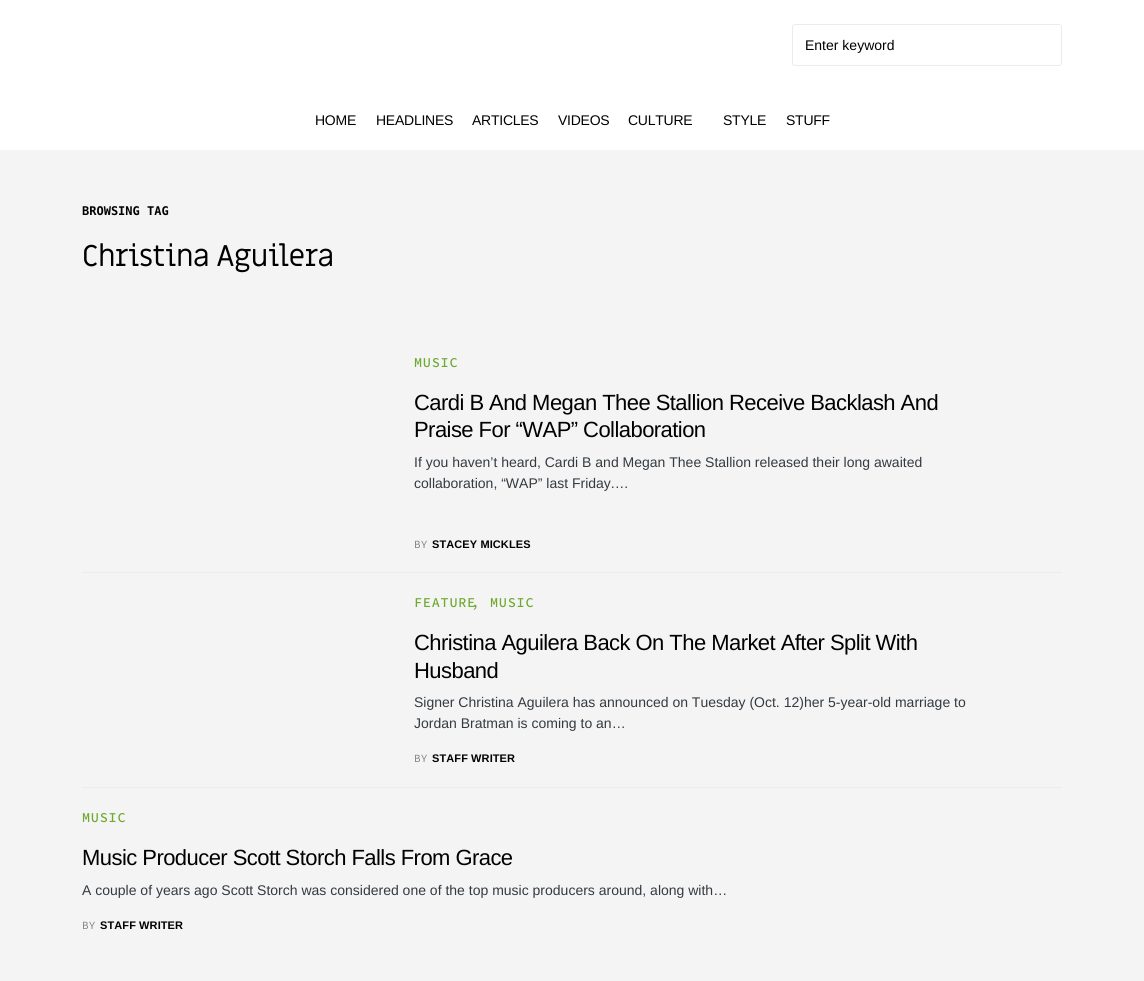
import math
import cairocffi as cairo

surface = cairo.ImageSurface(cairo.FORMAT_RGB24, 1144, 981)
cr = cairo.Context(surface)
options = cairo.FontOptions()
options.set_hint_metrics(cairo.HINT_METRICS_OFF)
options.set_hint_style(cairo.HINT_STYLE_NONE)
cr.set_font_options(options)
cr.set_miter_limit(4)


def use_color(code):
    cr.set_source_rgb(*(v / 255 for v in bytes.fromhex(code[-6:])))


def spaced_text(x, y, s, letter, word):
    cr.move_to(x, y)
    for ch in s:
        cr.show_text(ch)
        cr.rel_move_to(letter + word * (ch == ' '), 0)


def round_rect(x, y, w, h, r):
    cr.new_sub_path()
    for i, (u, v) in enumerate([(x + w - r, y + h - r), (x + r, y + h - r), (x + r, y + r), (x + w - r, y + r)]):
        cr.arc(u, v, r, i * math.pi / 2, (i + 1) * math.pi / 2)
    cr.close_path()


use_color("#f4f4f4")
cr.paint()
use_color("#ffffff")
cr.rectangle(0, 0, 1144, 150)
cr.fill()
round_rect(792.5, 24.5, 269, 41, 2.5)
use_color("#e9ecef")
cr.set_line_width(1)
cr.stroke()
cr.select_font_face("Liberation Sans")
cr.set_font_size(14)
use_color("#000000")
cr.move_to(805, 50)
cr.show_text("Enter keyword")
spaced_text(315, 125, "HOME", -0.25, 0)
spaced_text(376, 125, "HEADLINES", -0.25, 0)
spaced_text(472, 125, "ARTICLES", -0.25, 0)
spaced_text(558, 125, "VIDEOS", -0.25, 0)
spaced_text(628, 125, "CULTURE", -0.25, 0)
spaced_text(723, 125, "STYLE", -0.25, 0)
spaced_text(786, 125, "STUFF", -0.25, 0)
cr.select_font_face("DejaVu Sans Mono", cairo.FONT_SLANT_NORMAL, cairo.FONT_WEIGHT_BOLD)
cr.set_font_size(12)
cr.move_to(82, 215)
cr.show_text("BROWSING TAG")
cr.select_font_face("Miriam Libre")
cr.set_font_size(30)
spaced_text(82, 266, "Christina Aguilera", -0.75, 0)
cr.select_font_face("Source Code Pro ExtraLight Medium")
cr.set_font_size(13.5)
use_color("#6ca92e")
spaced_text(414, 367, "MUSIC", 0.75, 0)
cr.select_font_face("Liberation Sans")
cr.set_font_size(22)
use_color("#000000")
spaced_text(414, 410, "Cardi B And Megan Thee Stallion Receive Backlash And", -0.55, 0)
spaced_text(414, 437, "Praise For “WAP” Collaboration", -0.55, 0)
cr.set_font_size(14)
use_color("#343a40")
cr.move_to(414, 467)
cr.show_text("If you haven’t heard, Cardi B and Megan Thee Stallion released their long awaited")
cr.move_to(414, 488)
cr.show_text("collaboration, “WAP” last Friday.…")
cr.select_font_face("Source Code Pro ExtraLight")
cr.set_font_size(11)
use_color("#818181")
spaced_text(414, 548, "BY", 0.1, 0)
cr.select_font_face("Liberation Sans", cairo.FONT_SLANT_NORMAL, cairo.FONT_WEIGHT_BOLD)
use_color("#000000")
spaced_text(432, 548, "STACEY MICKLES", 0.1, 0)
use_color("#e9ecef")
cr.rectangle(82, 572, 980, 1)
cr.fill()
cr.select_font_face("Source Code Pro ExtraLight Medium")
cr.set_font_size(13.5)
use_color("#6ca92e")
spaced_text(471, 607, ",", 0.75, 0)
spaced_text(414, 607, "FEATURE", 0.75, 0)
spaced_text(490, 607, "MUSIC", 0.75, 0)
cr.select_font_face("Liberation Sans")
cr.set_font_size(22)
use_color("#000000")
spaced_text(414, 650, "Christina Aguilera Back On The Market After Split With", -0.55, 0)
spaced_text(414, 678, "Husband", -0.55, 0)
cr.set_font_size(14)
use_color("#343a40")
cr.move_to(414, 707)
cr.show_text("Signer Christina Aguilera has announced on Tuesday (Oct. 12)her 5-year-old marriage to")
cr.move_to(414, 728)
cr.show_text("Jordan Bratman is coming to an…")
cr.select_font_face("Source Code Pro ExtraLight")
cr.set_font_size(11)
use_color("#818181")
spaced_text(414, 762, "BY", 0.1, 0)
cr.select_font_face("Liberation Sans", cairo.FONT_SLANT_NORMAL, cairo.FONT_WEIGHT_BOLD)
use_color("#000000")
spaced_text(432, 762, "STAFF WRITER", 0.1, 0)
use_color("#e9ecef")
cr.rectangle(82, 787, 980, 1)
cr.fill()
cr.select_font_face("Source Code Pro ExtraLight Medium")
cr.set_font_size(13.5)
use_color("#6ca92e")
spaced_text(82, 822, "MUSIC", 0.75, 0)
cr.select_font_face("Liberation Sans")
cr.set_font_size(22)
use_color("#000000")
spaced_text(82, 865, "Music Producer Scott Storch Falls From Grace", -0.55, 0)
cr.set_font_size(14)
use_color("#343a40")
cr.move_to(82, 895)
cr.show_text("A couple of years ago Scott Storch was considered one of the top music producers around, along with…")
cr.select_font_face("Source Code Pro ExtraLight")
cr.set_font_size(11)
use_color("#818181")
spaced_text(82, 929, "BY", 0.1, 0)
cr.select_font_face("Liberation Sans", cairo.FONT_SLANT_NORMAL, cairo.FONT_WEIGHT_BOLD)
use_color("#000000")
spaced_text(100, 929, "STAFF WRITER", 0.1, 0)
surface.write_to_png("result.png")
